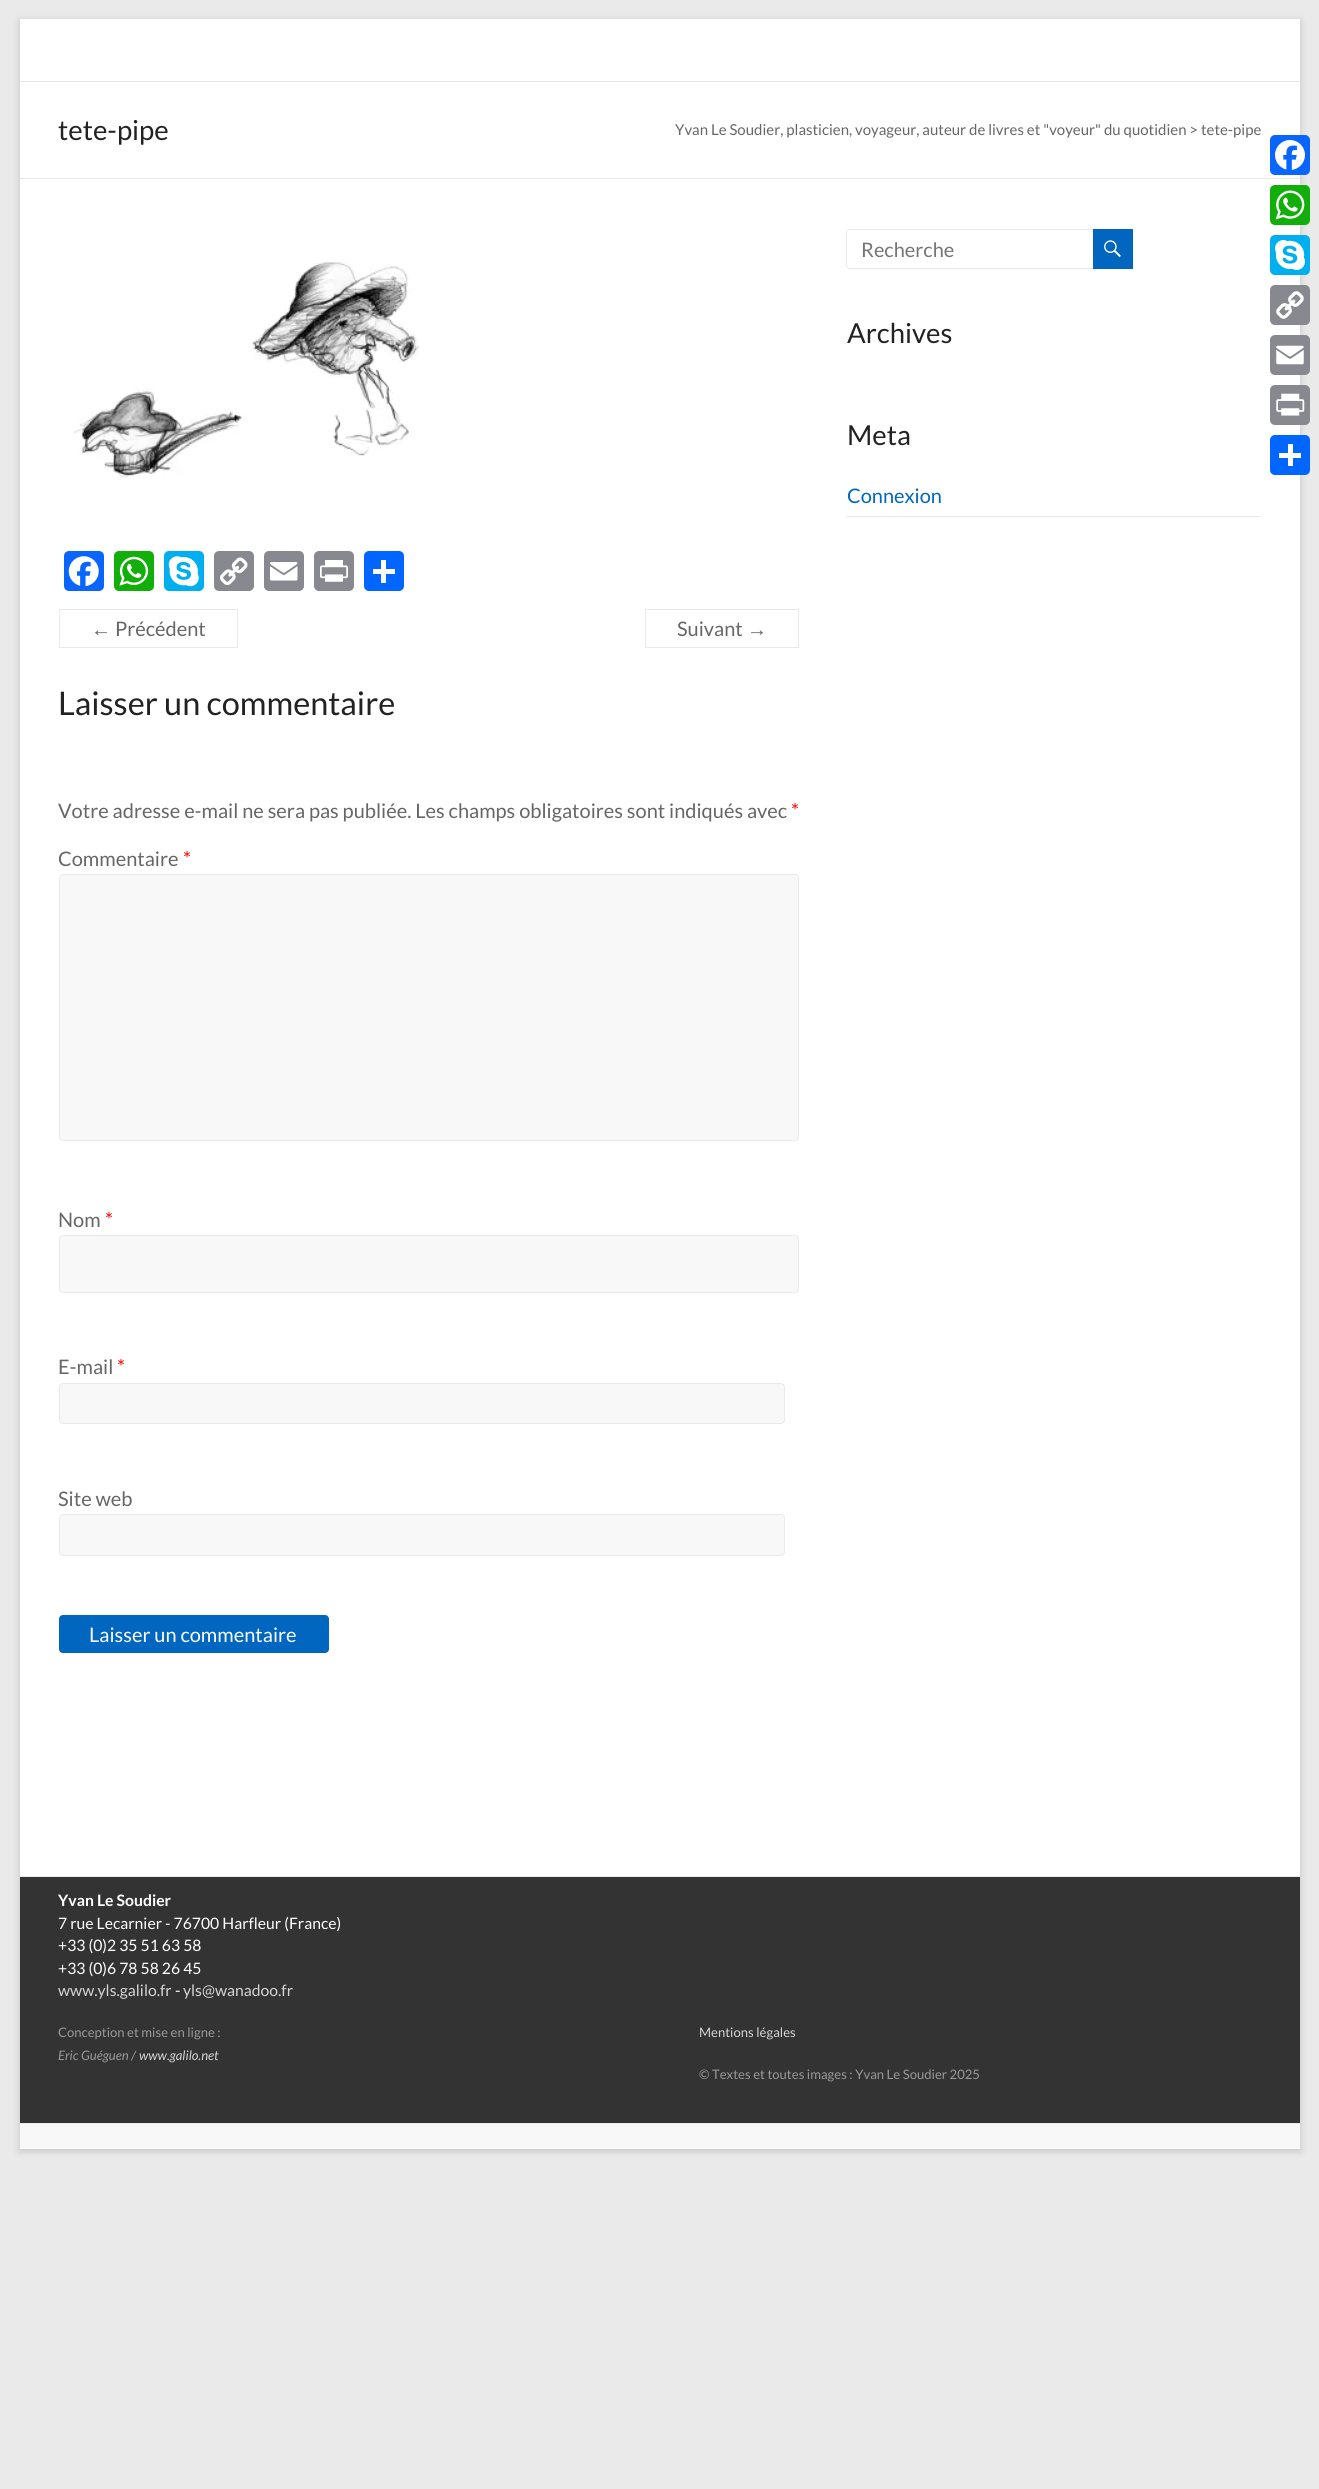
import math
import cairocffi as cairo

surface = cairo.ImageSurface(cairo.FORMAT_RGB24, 1319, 2489)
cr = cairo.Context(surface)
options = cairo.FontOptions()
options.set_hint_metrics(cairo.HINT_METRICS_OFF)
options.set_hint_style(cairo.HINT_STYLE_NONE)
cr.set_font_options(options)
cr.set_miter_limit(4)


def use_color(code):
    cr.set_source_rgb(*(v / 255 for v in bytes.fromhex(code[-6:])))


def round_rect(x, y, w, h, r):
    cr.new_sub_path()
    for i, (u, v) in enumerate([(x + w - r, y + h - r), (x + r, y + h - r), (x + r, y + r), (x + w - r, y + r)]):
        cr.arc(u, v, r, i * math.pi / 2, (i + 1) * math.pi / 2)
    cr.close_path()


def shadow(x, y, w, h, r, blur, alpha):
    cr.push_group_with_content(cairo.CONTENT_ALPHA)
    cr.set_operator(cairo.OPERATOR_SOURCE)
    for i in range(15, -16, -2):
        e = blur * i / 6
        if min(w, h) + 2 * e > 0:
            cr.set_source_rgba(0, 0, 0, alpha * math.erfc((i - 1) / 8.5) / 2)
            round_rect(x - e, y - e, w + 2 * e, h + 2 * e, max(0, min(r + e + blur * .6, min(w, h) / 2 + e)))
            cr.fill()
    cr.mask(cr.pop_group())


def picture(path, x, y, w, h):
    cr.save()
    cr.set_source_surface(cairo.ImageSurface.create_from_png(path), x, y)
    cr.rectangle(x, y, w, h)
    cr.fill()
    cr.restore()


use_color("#eaeaea")
cr.paint()
use_color("#646464")
shadow(20, 21, 1280, 2130, 0, 4, 0.3)
use_color("#ffffff")
cr.rectangle(20, 19, 1280, 1857)
cr.fill()
use_color("#eaeaea")
cr.rectangle(20, 81, 1280, 1)
cr.fill()
cr.rectangle(20, 178, 1280, 1)
cr.fill()
cr.select_font_face("Lato")
cr.set_font_size(27.5)
use_color("#222222")
cr.move_to(58, 140)
cr.show_text("tete-pipe")
cr.set_font_size(15)
use_color("#666666")
cr.move_to(675, 135)
cr.show_text("Yvan Le Soudier, plasticien, voyageur, auteur de livres et \"voyeur\" du quotidien > tete-pipe")
round_rect(846.5, 229.5, 249, 39, 3.5)
use_color("#eaeaea")
cr.set_line_width(1)
cr.stroke()
cr.set_font_size(20)
use_color("#757575")
cr.move_to(861, 257)
cr.show_text("Recherche")
use_color("#0066bf")
cr.rectangle(1093, 229, 40, 40)
cr.fill()
picture("img1.png", 1104, 240, 17, 18)
cr.set_font_size(27.5)
use_color("#222222")
cr.move_to(847, 343)
cr.show_text("Archives")
cr.move_to(847, 445)
cr.show_text("Meta")
use_color("#eaeaea")
cr.rectangle(846, 516, 415, 1)
cr.fill()
cr.set_font_size(20)
use_color("#0066bf")
cr.move_to(847, 503)
cr.show_text("Connexion")
picture("img2.png", 73, 259, 346, 219)
use_color("#0866ff")
round_rect(64, 551, 40, 40, 5)
cr.fill()
picture("img3.png", 68, 556, 31, 31)
use_color("#12af0a")
round_rect(114, 551, 40, 40, 5)
cr.fill()
picture("img4.png", 119, 556, 30, 30)
use_color("#00aff0")
round_rect(164, 551, 40, 40, 5)
cr.fill()
picture("img5.png", 168, 556, 31, 31)
use_color("#888990")
round_rect(214, 551, 40, 40, 5)
cr.fill()
picture("img6.png", 220, 557, 28, 28)
round_rect(264, 551, 40, 40, 5)
cr.fill()
picture("img7.png", 270, 562, 28, 19)
round_rect(314, 551, 40, 40, 5)
cr.fill()
picture("img8.png", 320, 560, 28, 22)
use_color("#0166ff")
round_rect(364, 551, 40, 40, 5)
cr.fill()
use_color("#ffffff")
cr.rectangle(381, 560, 5, 23)
cr.fill()
cr.rectangle(373, 569, 22, 5)
cr.fill()
cr.rectangle(59.5, 609.5, 178, 38)
use_color("#eaeaea")
cr.stroke()
cr.select_font_face("Liberation Sans")
use_color("#666666")
cr.move_to(91, 636)
cr.show_text("←")
cr.select_font_face("Lato")
cr.move_to(115, 636)
cr.show_text("Précédent")
cr.rectangle(645.5, 609.5, 153, 38)
use_color("#eaeaea")
cr.stroke()
use_color("#666666")
cr.move_to(677, 636)
cr.show_text("Suivant")
cr.select_font_face("Liberation Sans")
cr.move_to(747, 636)
cr.show_text("→")
cr.select_font_face("Lato")
cr.set_font_size(32.5)
use_color("#222222")
cr.move_to(58, 715)
cr.show_text("Laisser un commentaire")
cr.set_font_size(20)
use_color("#666666")
cr.move_to(58, 818)
cr.show_text("Votre adresse e-mail ne sera pas publiée. Les champs obligatoires sont indiqués avec")
use_color("#ff0000")
cr.move_to(791, 818)
cr.show_text("*")
use_color("#666666")
cr.move_to(58, 866)
cr.show_text("Commentaire")
use_color("#ff0000")
cr.move_to(183, 866)
cr.show_text("*")
use_color("#f8f8f8")
round_rect(59.5, 874.5, 739, 266, 3.5)
cr.fill_preserve()
use_color("#eaeaea")
cr.stroke()
use_color("#666666")
cr.move_to(58, 1227)
cr.show_text("Nom")
use_color("#ff0000")
cr.move_to(105, 1227)
cr.show_text("*")
use_color("#f8f8f8")
round_rect(59.5, 1235.5, 739, 57, 3.5)
cr.fill_preserve()
use_color("#eaeaea")
cr.stroke()
use_color("#666666")
cr.move_to(58, 1374)
cr.show_text("E-mail")
use_color("#ff0000")
cr.move_to(117, 1374)
cr.show_text("*")
use_color("#f8f8f8")
round_rect(59.5, 1383.5, 725, 40, 3.5)
cr.fill_preserve()
use_color("#eaeaea")
cr.stroke()
use_color("#666666")
cr.move_to(58, 1506)
cr.show_text("Site web")
use_color("#f8f8f8")
round_rect(59.5, 1514.5, 725, 41, 3.5)
cr.fill_preserve()
use_color("#eaeaea")
cr.stroke()
use_color("#0066bf")
round_rect(59, 1615, 270, 38, 4)
cr.fill()
use_color("#ffffff")
cr.move_to(89, 1642)
cr.show_text("Laisser un commentaire")
use_color("#333333")
cr.rectangle(20, 1877, 1280, 246)
cr.fill()
use_color("#eaeaea")
cr.rectangle(20, 1876, 1280, 1)
cr.fill()
cr.select_font_face("Lato", cairo.FONT_SLANT_NORMAL, cairo.FONT_WEIGHT_BOLD)
cr.set_font_size(15.75)
use_color("#ffffff")
cr.move_to(58, 1906)
cr.show_text("Yvan Le Soudier")
cr.select_font_face("Lato")
cr.move_to(58, 1929)
cr.show_text("7 rue Lecarnier - 76700 Harfleur (France)")
cr.move_to(58, 1951)
cr.show_text("+33 (0)2 35 51 63 58")
cr.move_to(58, 1974)
cr.show_text("+33 (0)6 78 58 26 45")
use_color("#d5d5d5")
cr.move_to(58, 1996)
cr.show_text("www.yls.galilo.fr")
use_color("#ffffff")
cr.move_to(175, 1996)
cr.show_text("-")
use_color("#d5d5d5")
cr.move_to(183, 1996)
cr.show_text("yls@wanadoo.fr")
cr.set_font_size(13.1)
use_color("#999999")
cr.move_to(58, 2037)
cr.show_text("Conception et mise en ligne :")
cr.select_font_face("Lato", cairo.FONT_SLANT_ITALIC)
cr.move_to(58, 2060)
cr.show_text("Eric Guéguen /")
use_color("#d5d5d5")
cr.move_to(139, 2060)
cr.show_text("www.galilo.net")
cr.select_font_face("Lato")
cr.move_to(699, 2037)
cr.show_text("Mentions légales")
use_color("#999999")
cr.move_to(699, 2079)
cr.show_text("© Textes et toutes images : Yvan Le Soudier 2025")
use_color("#f8f8f8")
cr.rectangle(20, 2124, 1280, 25)
cr.fill()
use_color("#eaeaea")
cr.rectangle(20, 2123, 1280, 1)
cr.fill()
use_color("#0866ff")
round_rect(1270, 135, 40, 40, 5)
cr.fill()
picture("img9.png", 1275, 140, 30, 30)
use_color("#12af0a")
round_rect(1270, 185, 40, 40, 5)
cr.fill()
picture("img10.png", 1275, 190, 30, 30)
use_color("#00aff0")
round_rect(1270, 235, 40, 40, 5)
cr.fill()
picture("img11.png", 1275, 240, 30, 30)
use_color("#888990")
round_rect(1270, 285, 40, 40, 5)
cr.fill()
picture("img12.png", 1276, 291, 28, 28)
round_rect(1270, 335, 40, 40, 5)
cr.fill()
picture("img13.png", 1276, 345, 28, 20)
round_rect(1270, 385, 40, 40, 5)
cr.fill()
picture("img14.png", 1276, 393, 29, 23)
use_color("#0166ff")
round_rect(1270, 435, 40, 40, 5)
cr.fill()
use_color("#ffffff")
cr.rectangle(1288, 444, 5, 22)
cr.fill()
cr.rectangle(1279, 453, 22, 5)
cr.fill()
surface.write_to_png("result.png")
